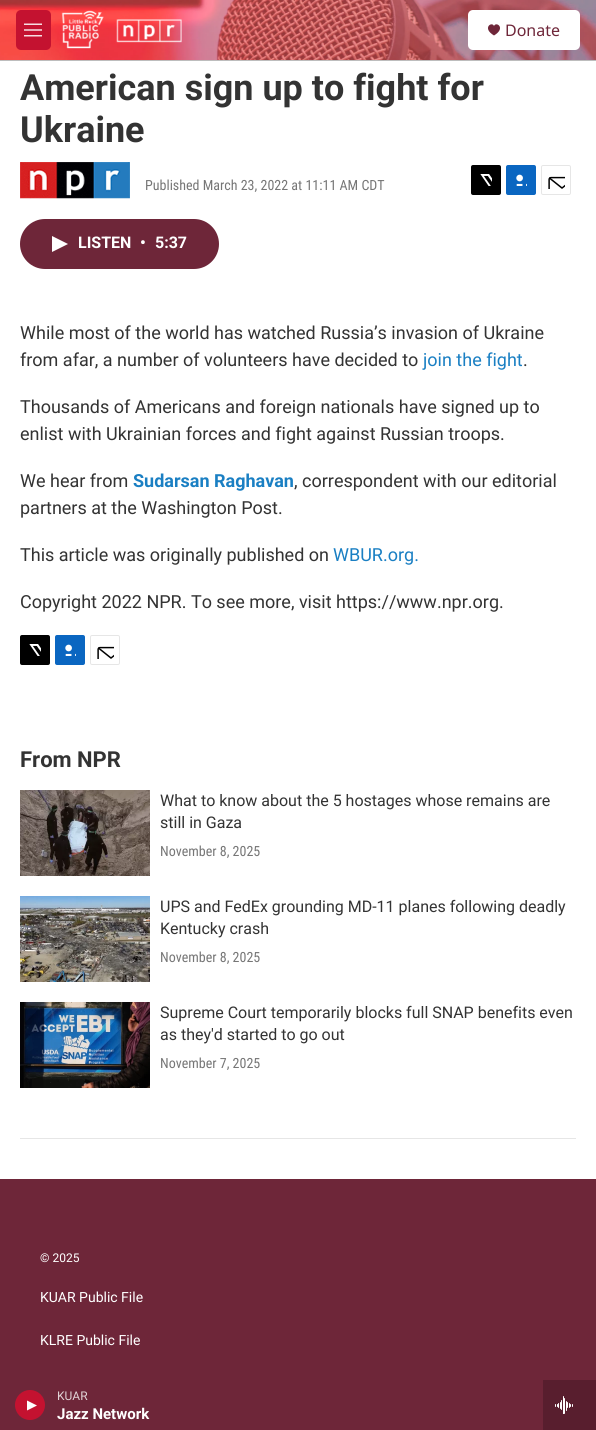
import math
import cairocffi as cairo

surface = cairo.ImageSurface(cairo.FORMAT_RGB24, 596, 1430)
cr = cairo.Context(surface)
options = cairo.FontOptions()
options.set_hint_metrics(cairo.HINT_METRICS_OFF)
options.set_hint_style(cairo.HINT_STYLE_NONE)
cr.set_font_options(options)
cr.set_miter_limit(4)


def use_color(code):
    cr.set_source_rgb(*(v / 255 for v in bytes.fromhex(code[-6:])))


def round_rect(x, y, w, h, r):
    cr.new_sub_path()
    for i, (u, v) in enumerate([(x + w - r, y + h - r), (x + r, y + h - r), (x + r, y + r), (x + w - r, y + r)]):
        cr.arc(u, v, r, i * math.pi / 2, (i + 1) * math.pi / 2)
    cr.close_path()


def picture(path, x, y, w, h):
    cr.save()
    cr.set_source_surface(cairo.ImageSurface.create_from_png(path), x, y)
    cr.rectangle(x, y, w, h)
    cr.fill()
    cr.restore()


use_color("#ffffff")
cr.paint()
use_color("#bdbdbd")
cr.rectangle(0, 60, 596, 1)
cr.fill()
picture("img1.png", 0, 0, 596, 60)
use_color("#c41230")
round_rect(16, 10, 35, 40, 5)
cr.fill()
picture("img2.png", 24, 23, 18, 14)
picture("img3.png", 61, 10, 121, 39)
use_color("#ffffff")
round_rect(468, 10, 112, 40, 5)
cr.fill()
use_color("#6e2639")
cr.new_path()
cr.move_to(494, 26)
cr.curve_to(492, 21, 481.5, 28, 494, 35.5)
cr.curve_to(506.5, 28, 496, 21, 494, 26)
cr.close_path()
cr.fill()
cr.select_font_face("Noto Sans")
cr.set_font_size(16)
cr.move_to(505, 36)
cr.show_text("Donate")
cr.rectangle(0, 1380, 543, 50)
cr.fill()
use_color("#c41230")
cr.arc(30, 1405, 15, 0, 2 * math.pi)
cr.fill()
use_color("#ffffff")
cr.new_path()
cr.move_to(27, 1400.5)
cr.line_to(37, 1405.5)
cr.line_to(27, 1410.5)
cr.close_path()
cr.fill()
cr.select_font_face("Roboto")
cr.set_font_size(12)
use_color("#e2d4d7")
cr.move_to(57, 1400)
cr.show_text("KUAR")
cr.select_font_face("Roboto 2", cairo.FONT_SLANT_NORMAL, cairo.FONT_WEIGHT_BOLD)
cr.set_font_size(15)
use_color("#ffffff")
cr.move_to(57, 1419)
cr.show_text("Jazz Network")
use_color("#581e2e")
cr.rectangle(543, 1380, 53, 50)
cr.fill()
picture("img4.png", 555, 1396, 18, 18)
cr.select_font_face("Roboto", cairo.FONT_SLANT_NORMAL, cairo.FONT_WEIGHT_BOLD)
cr.set_font_size(36)
use_color("#333333")
cr.move_to(20, 100)
cr.show_text("American sign up to fight for")
cr.move_to(20, 142)
cr.show_text("Ukraine")
picture("img5.png", 20, 162, 110, 37)
cr.select_font_face("Roboto Condensed")
cr.set_font_size(14)
use_color("#767676")
cr.move_to(145, 190)
cr.show_text("Published March 23, 2022 at 11:11 AM CDT")
use_color("#000000")
round_rect(471, 165, 30, 30, 2)
cr.fill()
picture("img6.png", 480, 174, 12, 12)
use_color("#0a66c1")
round_rect(506, 165, 30, 30, 2)
cr.fill()
picture("img7.png", 516, 174, 11, 12)
round_rect(541.5, 165.5, 29, 29, 1.5)
use_color("#e6e6e6")
cr.set_line_width(1)
cr.stroke()
picture("img8.png", 548, 176, 17, 13)
use_color("#6e2639")
round_rect(20, 219, 199, 50, 25)
cr.fill()
use_color("#ffffff")
cr.new_path()
cr.move_to(52, 236)
cr.line_to(68, 244)
cr.line_to(52, 252)
cr.close_path()
cr.fill()
cr.select_font_face("Roboto 2", cairo.FONT_SLANT_NORMAL, cairo.FONT_WEIGHT_BOLD)
cr.set_font_size(16)
cr.move_to(78, 248)
cr.show_text("LISTEN")
cr.move_to(140, 248)
cr.show_text("•")
cr.move_to(155, 248)
cr.show_text("5:37")
cr.select_font_face("Roboto")
cr.set_font_size(18)
use_color("#333333")
cr.move_to(20, 339)
cr.show_text("While most of the world has watched Russia’s invasion of Ukraine")
cr.move_to(20, 366)
cr.show_text("from afar, a number of volunteers have decided to")
use_color("#1a7fc3")
cr.move_to(423, 366)
cr.show_text("join the fight")
use_color("#333333")
cr.move_to(523, 366)
cr.show_text(".")
cr.move_to(20, 413)
cr.show_text("Thousands of Americans and foreign nationals have signed up to")
cr.move_to(20, 440)
cr.show_text("enlist with Ukrainian forces and fight against Russian troops.")
cr.move_to(20, 487)
cr.show_text("We hear from")
cr.select_font_face("Roboto 2", cairo.FONT_SLANT_NORMAL, cairo.FONT_WEIGHT_BOLD)
use_color("#1a7fc3")
cr.move_to(133, 487)
cr.show_text("Sudarsan Raghavan")
cr.select_font_face("Roboto")
use_color("#333333")
cr.move_to(294, 487)
cr.show_text(", correspondent with our editorial")
cr.move_to(20, 514)
cr.show_text("partners at the Washington Post.")
cr.move_to(20, 561)
cr.show_text("This article was originally published on")
use_color("#1a7fc3")
cr.move_to(333, 561)
cr.show_text("WBUR.org.")
use_color("#333333")
cr.move_to(20, 608)
cr.show_text("Copyright 2022 NPR. To see more, visit https://www.npr.org.")
use_color("#000000")
round_rect(20, 635, 30, 30, 2)
cr.fill()
picture("img6.png", 29, 644, 12, 12)
use_color("#0a66c1")
round_rect(55, 635, 30, 30, 2)
cr.fill()
picture("img7.png", 65, 644, 11, 12)
round_rect(90.5, 635.5, 29, 29, 1.5)
use_color("#e6e6e6")
cr.stroke()
picture("img8.png", 97, 646, 17, 13)
cr.select_font_face("Roboto", cairo.FONT_SLANT_NORMAL, cairo.FONT_WEIGHT_BOLD)
cr.set_font_size(22)
use_color("#333333")
cr.move_to(20, 767)
cr.show_text("From NPR")
use_color("#e6e6e6")
cr.rectangle(20, 1138, 556, 1)
cr.fill()
picture("img9.png", 20, 790, 130, 86)
cr.select_font_face("Roboto")
cr.set_font_size(16)
use_color("#333333")
cr.move_to(160, 806)
cr.show_text("What to know about the 5 hostages whose remains are")
cr.move_to(160, 828)
cr.show_text("still in Gaza")
cr.select_font_face("Roboto Condensed")
cr.set_font_size(14)
use_color("#767676")
cr.move_to(160, 856)
cr.show_text("November 8, 2025")
picture("img10.png", 20, 896, 130, 86)
cr.select_font_face("Roboto")
cr.set_font_size(16)
use_color("#333333")
cr.move_to(160, 912)
cr.show_text("UPS and FedEx grounding MD-11 planes following deadly")
cr.move_to(160, 934)
cr.show_text("Kentucky crash")
cr.select_font_face("Roboto Condensed")
cr.set_font_size(14)
use_color("#767676")
cr.move_to(160, 962)
cr.show_text("November 8, 2025")
picture("img11.png", 20, 1002, 130, 86)
cr.select_font_face("Roboto")
cr.set_font_size(16)
use_color("#333333")
cr.move_to(160, 1018)
cr.show_text("Supreme Court temporarily blocks full SNAP benefits even")
cr.move_to(160, 1040)
cr.show_text("as they'd started to go out")
cr.select_font_face("Roboto Condensed")
cr.set_font_size(14)
use_color("#767676")
cr.move_to(160, 1068)
cr.show_text("November 7, 2025")
use_color("#6e2639")
cr.rectangle(0, 1179, 596, 201)
cr.fill()
cr.select_font_face("Roboto")
cr.set_font_size(12)
use_color("#ffffff")
cr.move_to(40, 1262)
cr.show_text("© 2025")
cr.set_font_size(14)
cr.move_to(40, 1302)
cr.show_text("KUAR Public File")
cr.move_to(40, 1345)
cr.show_text("KLRE Public File")
surface.write_to_png("result.png")
